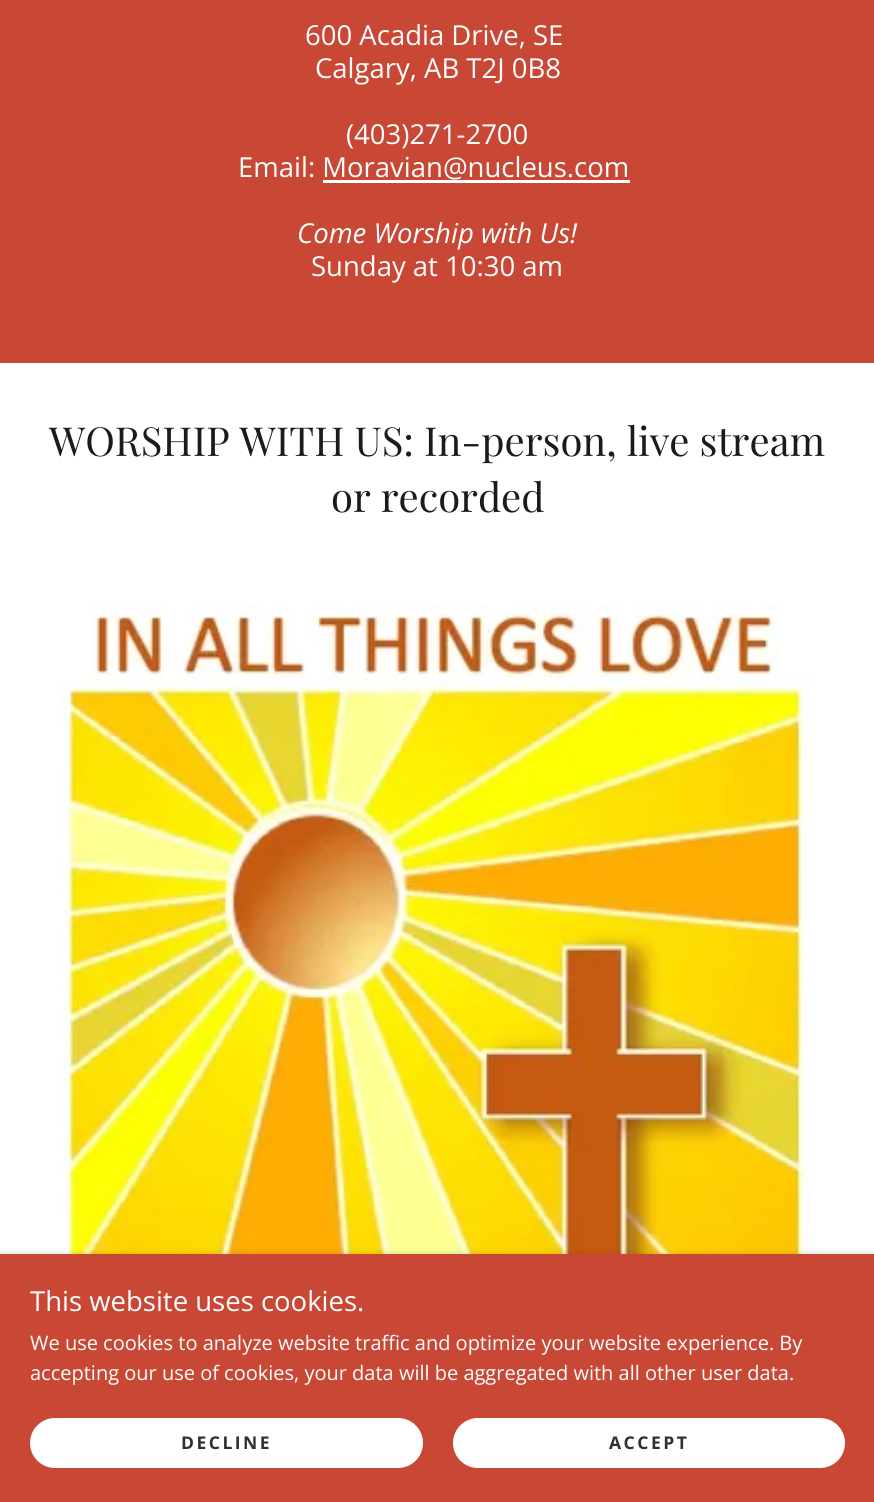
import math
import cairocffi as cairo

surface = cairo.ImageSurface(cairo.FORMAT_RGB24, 874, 1502)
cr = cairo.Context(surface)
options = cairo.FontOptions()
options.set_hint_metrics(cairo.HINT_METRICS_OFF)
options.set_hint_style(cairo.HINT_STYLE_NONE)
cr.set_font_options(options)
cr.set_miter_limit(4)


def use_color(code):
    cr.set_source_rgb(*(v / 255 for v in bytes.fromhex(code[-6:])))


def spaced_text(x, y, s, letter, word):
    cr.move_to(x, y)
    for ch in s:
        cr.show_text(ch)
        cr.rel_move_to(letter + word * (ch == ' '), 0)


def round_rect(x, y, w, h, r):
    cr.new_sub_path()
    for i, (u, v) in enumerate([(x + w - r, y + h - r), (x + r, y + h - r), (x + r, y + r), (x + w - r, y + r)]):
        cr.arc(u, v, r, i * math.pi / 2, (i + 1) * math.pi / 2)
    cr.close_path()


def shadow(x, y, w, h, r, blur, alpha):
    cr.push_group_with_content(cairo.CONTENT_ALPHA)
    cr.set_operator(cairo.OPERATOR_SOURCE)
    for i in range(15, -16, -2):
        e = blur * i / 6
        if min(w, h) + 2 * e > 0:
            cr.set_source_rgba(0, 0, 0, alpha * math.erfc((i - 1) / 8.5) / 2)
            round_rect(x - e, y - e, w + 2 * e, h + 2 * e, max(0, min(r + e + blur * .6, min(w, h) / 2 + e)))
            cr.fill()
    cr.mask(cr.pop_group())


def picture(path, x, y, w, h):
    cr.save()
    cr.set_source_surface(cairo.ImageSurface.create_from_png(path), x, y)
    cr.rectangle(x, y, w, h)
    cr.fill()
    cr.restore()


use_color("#c84835")
cr.paint()
cr.select_font_face("Open Sans")
cr.set_font_size(27.5)
use_color("#ffffff")
cr.move_to(305, 45)
cr.show_text("600 Acadia Drive, SE")
cr.move_to(315, 78)
cr.show_text("Calgary, AB T2J 0B8")
cr.move_to(346, 144)
cr.show_text("(403)271-2700")
cr.move_to(238, 177)
cr.show_text("Email: Moravian@nucleus.com")
cr.rectangle(323, 180, 307, 3)
cr.fill()
cr.select_font_face("Open Sans", cairo.FONT_SLANT_ITALIC)
cr.move_to(297, 243)
cr.show_text("Come Worship with Us!")
cr.select_font_face("Open Sans")
cr.move_to(311, 276)
cr.show_text("Sunday at 10:30 am")
cr.rectangle(0, 363, 874, 891)
cr.fill()
cr.select_font_face("Playfair Display")
cr.set_font_size(40)
use_color("#1b1b1b")
cr.move_to(49, 456)
cr.show_text("WORSHIP WITH US: In-person, live stream")
cr.move_to(331, 512)
cr.show_text("or recorded")
picture("img1.png", 61, 602, 752, 652)
use_color("#000000")
shadow(0, 1256, 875, 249, 0, 4, 0.3)
use_color("#c84835")
cr.rectangle(0, 1254, 874, 248)
cr.fill()
cr.select_font_face("Open Sans")
cr.set_font_size(27.5)
use_color("#ffffff")
cr.move_to(30, 1311)
cr.show_text("This website uses cookies.")
cr.set_font_size(20)
cr.move_to(30, 1350)
cr.show_text("We use cookies to analyze website traffic and optimize your website experience. By")
cr.move_to(30, 1380)
cr.show_text("accepting our use of cookies, your data will be aggregated with all other user data.")
round_rect(30, 1418, 393, 50, 25)
cr.fill()
cr.select_font_face("Open Sans", cairo.FONT_SLANT_NORMAL, cairo.FONT_WEIGHT_BOLD)
cr.set_font_size(17.5)
use_color("#303030")
spaced_text(181, 1449, "DECLINE", 2.5, 0)
use_color("#ffffff")
round_rect(453, 1418, 392, 50, 25)
cr.fill()
use_color("#303030")
spaced_text(609, 1449, "ACCEPT", 2.5, 0)
surface.write_to_png("result.png")
